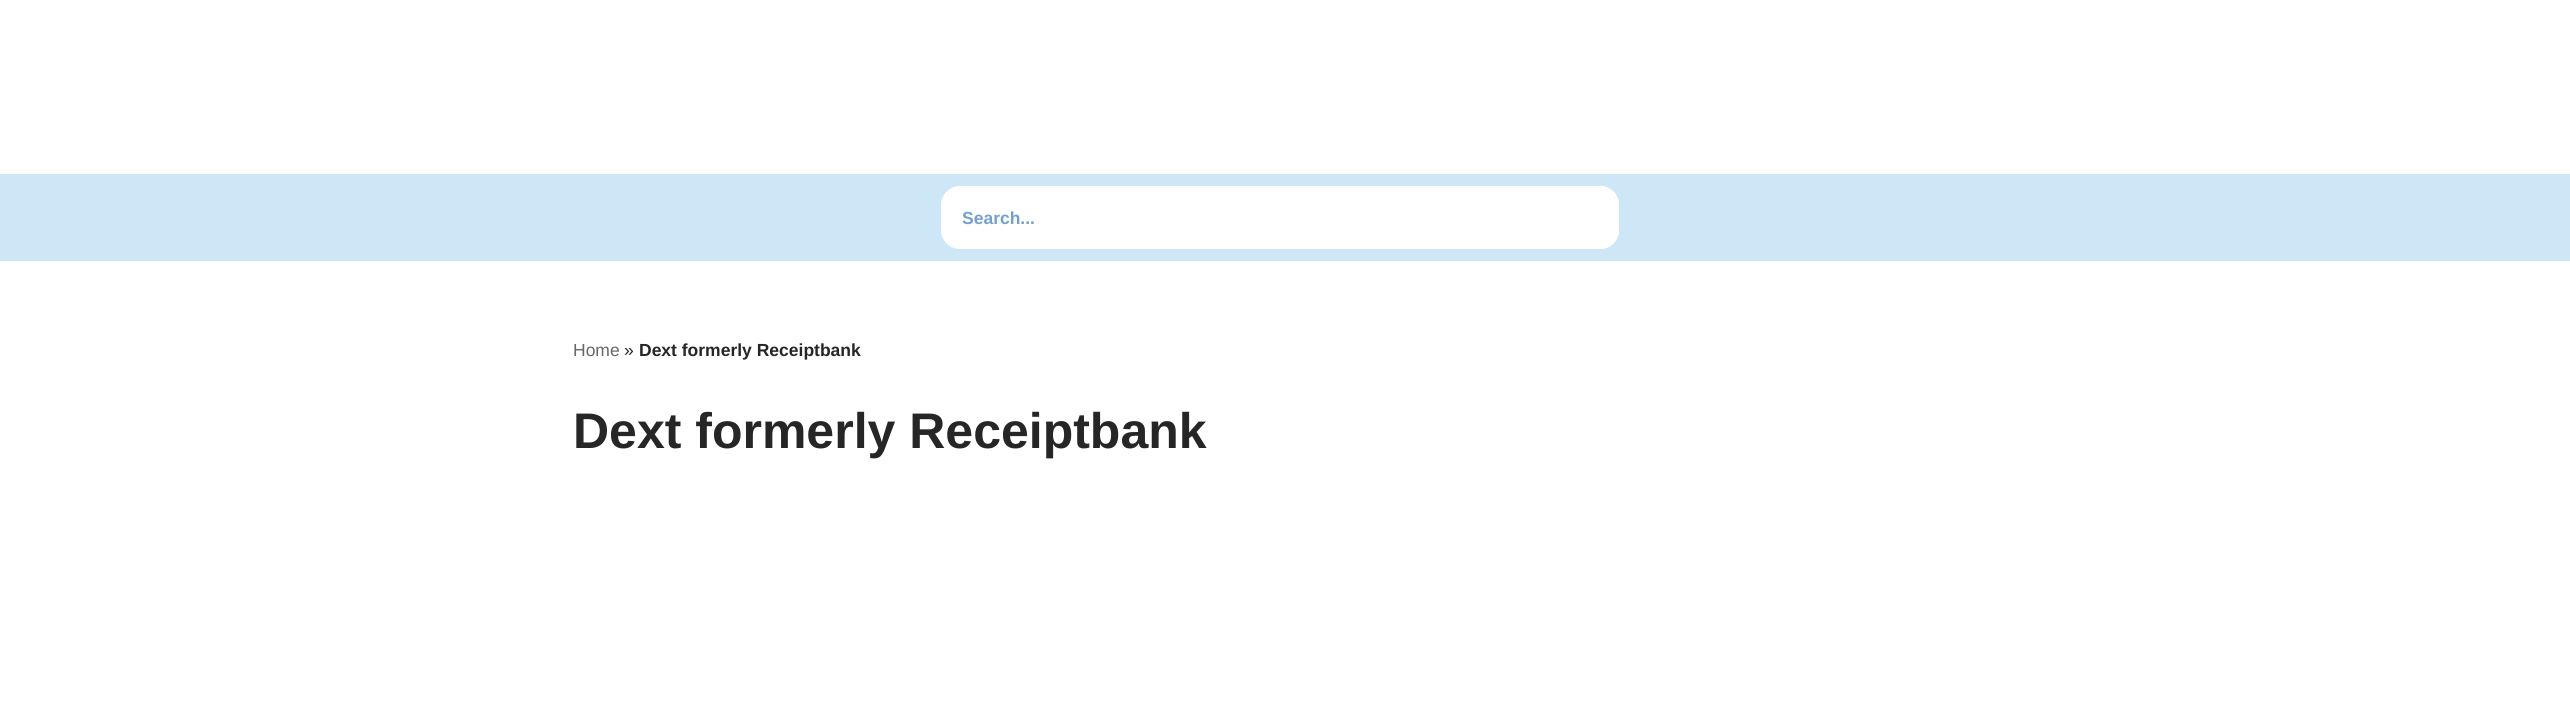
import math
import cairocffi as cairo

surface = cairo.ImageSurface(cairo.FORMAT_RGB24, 2570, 706)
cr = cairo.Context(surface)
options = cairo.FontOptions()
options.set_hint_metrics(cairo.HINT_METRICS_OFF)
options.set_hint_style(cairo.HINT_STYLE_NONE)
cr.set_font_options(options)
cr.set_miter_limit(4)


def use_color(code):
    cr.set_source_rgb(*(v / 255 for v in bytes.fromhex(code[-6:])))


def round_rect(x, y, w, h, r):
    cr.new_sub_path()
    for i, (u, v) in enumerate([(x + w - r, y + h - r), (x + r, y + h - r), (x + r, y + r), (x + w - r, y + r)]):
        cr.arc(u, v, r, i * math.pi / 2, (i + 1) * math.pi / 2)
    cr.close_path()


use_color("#ffffff")
cr.paint()
use_color("#cde7f6")
cr.rectangle(0, 174, 2570, 87)
cr.fill()
use_color("#ffffff")
round_rect(941, 186, 678, 63, 19)
cr.fill()
cr.select_font_face("Liberation Sans", cairo.FONT_SLANT_NORMAL, cairo.FONT_WEIGHT_BOLD)
cr.set_font_size(17.5)
use_color("#74a0cd")
cr.move_to(962, 224)
cr.show_text("Search...")
use_color("#ffffff")
cr.new_path()
cr.move_to(1556, 186)
cr.line_to(1600, 186)
cr.curve_to(1610.5, 186, 1619, 194.5, 1619, 205)
cr.line_to(1619, 230)
cr.curve_to(1619, 240.5, 1610.5, 249, 1600, 249)
cr.line_to(1556, 249)
cr.close_path()
cr.fill()
cr.select_font_face("Liberation Sans")
use_color("#676767")
cr.move_to(573, 356)
cr.show_text("Home")
use_color("#272626")
cr.move_to(624, 356)
cr.show_text("»")
cr.select_font_face("Liberation Sans", cairo.FONT_SLANT_NORMAL, cairo.FONT_WEIGHT_BOLD)
cr.move_to(639, 356)
cr.show_text("Dext formerly Receiptbank")
cr.set_font_size(50)
cr.move_to(573, 448)
cr.show_text("Dext formerly Receiptbank")
surface.write_to_png("result.png")
